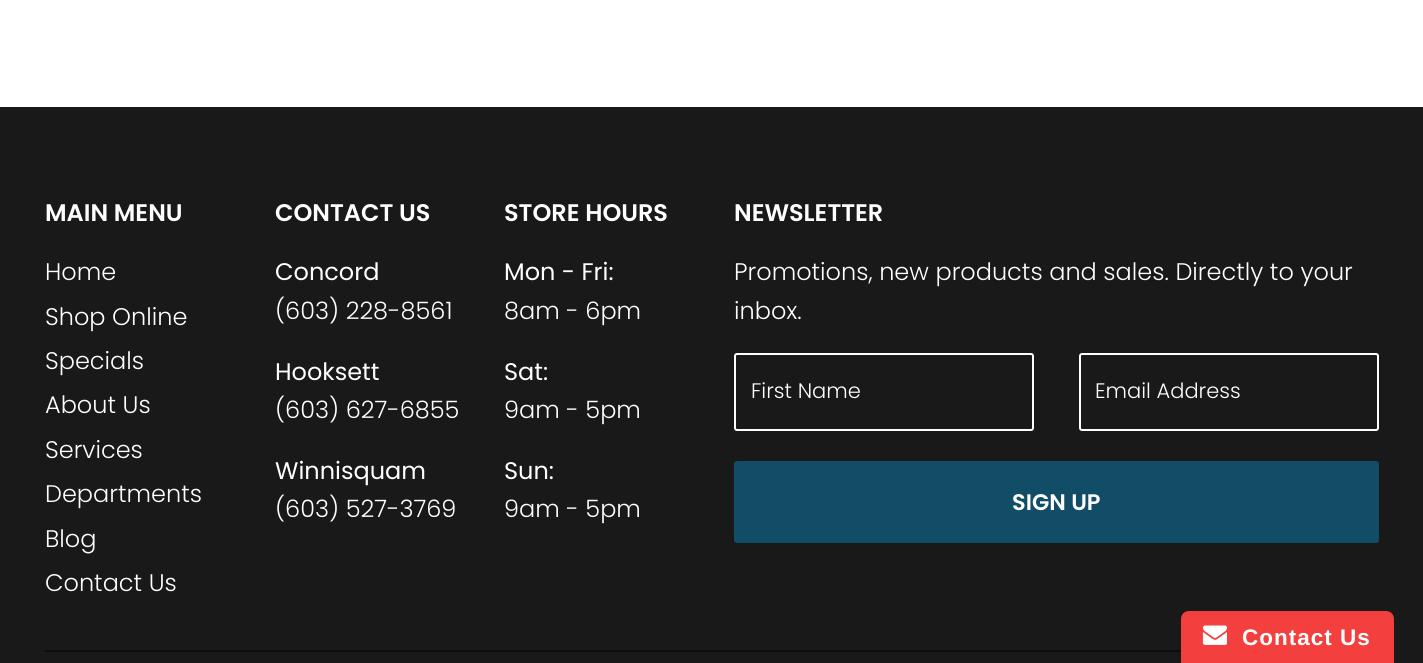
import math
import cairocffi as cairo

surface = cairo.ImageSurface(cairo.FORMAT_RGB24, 1423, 663)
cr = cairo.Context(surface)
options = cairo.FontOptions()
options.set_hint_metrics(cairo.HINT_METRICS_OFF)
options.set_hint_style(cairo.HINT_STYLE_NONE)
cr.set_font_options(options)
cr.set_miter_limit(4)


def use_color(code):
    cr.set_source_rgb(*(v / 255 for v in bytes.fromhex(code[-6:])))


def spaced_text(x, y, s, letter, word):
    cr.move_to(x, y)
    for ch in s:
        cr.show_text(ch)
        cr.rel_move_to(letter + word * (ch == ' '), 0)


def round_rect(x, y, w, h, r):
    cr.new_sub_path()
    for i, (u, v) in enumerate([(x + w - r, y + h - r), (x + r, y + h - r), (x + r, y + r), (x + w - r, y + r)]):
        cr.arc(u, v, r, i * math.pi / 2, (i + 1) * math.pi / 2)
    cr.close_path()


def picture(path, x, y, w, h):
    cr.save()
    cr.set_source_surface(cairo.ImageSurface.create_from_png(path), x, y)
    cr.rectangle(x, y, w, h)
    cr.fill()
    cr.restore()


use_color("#ffffff")
cr.paint()
use_color("#191919")
cr.rectangle(0, 107, 1423, 556)
cr.fill()
cr.select_font_face("Poppins SemiBold")
cr.set_font_size(24)
use_color("#ffffff")
cr.move_to(45, 221)
cr.show_text("MAIN MENU")
cr.select_font_face("Poppins Light")
cr.move_to(45, 280)
cr.show_text("Home")
cr.move_to(45, 325)
cr.show_text("Shop Online")
cr.move_to(45, 369)
cr.show_text("Specials")
cr.move_to(45, 413)
cr.show_text("About Us")
cr.move_to(45, 458)
cr.show_text("Services")
cr.move_to(45, 502)
cr.show_text("Departments")
cr.move_to(45, 547)
cr.show_text("Blog")
cr.move_to(45, 591)
cr.show_text("Contact Us")
cr.select_font_face("Poppins SemiBold")
cr.move_to(275, 221)
cr.show_text("CONTACT US")
cr.select_font_face("Poppins")
cr.move_to(275, 280)
cr.show_text("Concord")
cr.select_font_face("Poppins Light")
cr.move_to(275, 319)
cr.show_text("(603) 228-8561")
cr.select_font_face("Poppins")
cr.move_to(275, 380)
cr.show_text("Hooksett")
cr.select_font_face("Poppins Light")
cr.move_to(275, 418)
cr.show_text("(603) 627-6855")
cr.select_font_face("Poppins")
cr.move_to(275, 479)
cr.show_text("Winnisquam")
cr.select_font_face("Poppins Light")
cr.move_to(275, 517)
cr.show_text("(603) 527-3769")
cr.select_font_face("Poppins SemiBold")
cr.move_to(504, 221)
cr.show_text("STORE HOURS")
cr.select_font_face("Poppins")
cr.move_to(504, 280)
cr.show_text("Mon - Fri:")
cr.select_font_face("Poppins Light")
cr.move_to(504, 319)
cr.show_text("8am - 6pm")
cr.select_font_face("Poppins")
cr.move_to(504, 380)
cr.show_text("Sat:")
cr.select_font_face("Poppins Light")
cr.move_to(504, 418)
cr.show_text("9am - 5pm")
cr.select_font_face("Poppins")
cr.move_to(504, 479)
cr.show_text("Sun:")
cr.select_font_face("Poppins Light")
cr.move_to(504, 517)
cr.show_text("9am - 5pm")
cr.select_font_face("Poppins SemiBold")
cr.move_to(734, 221)
cr.show_text("NEWSLETTER")
cr.select_font_face("Poppins Light")
cr.move_to(734, 280)
cr.show_text("Promotions, new products and sales. Directly to your")
cr.move_to(734, 319)
cr.show_text("inbox.")
round_rect(735, 354, 298, 76, 2)
cr.stroke()
cr.set_font_size(21)
cr.move_to(751, 398)
cr.show_text("First Name")
round_rect(1080, 354, 298, 76, 2)
cr.stroke()
cr.move_to(1095, 398)
cr.show_text("Email Address")
use_color("#124d67")
round_rect(734, 461, 645, 82, 3)
cr.fill()
cr.select_font_face("Poppins SemiBold")
cr.set_font_size(22.5)
use_color("#ffffff")
cr.move_to(1012, 510)
cr.show_text("SIGN UP")
use_color("#0c0c0c")
cr.rectangle(45, 650, 1136, 2)
cr.fill()
use_color("#f43f3f")
cr.new_path()
cr.move_to(1189, 611)
cr.line_to(1386, 611)
cr.curve_to(1390.5, 611, 1394, 614.5, 1394, 619)
cr.line_to(1394, 663)
cr.line_to(1181, 663)
cr.line_to(1181, 619)
cr.curve_to(1181, 614.5, 1184.5, 611, 1189, 611)
cr.close_path()
cr.fill()
picture("img1.png", 1202, 625, 25, 20)
cr.select_font_face("Liberation Sans", cairo.FONT_SLANT_NORMAL, cairo.FONT_WEIGHT_BOLD)
use_color("#ffffff")
spaced_text(1242, 645, "Contact Us", 1, 0)
surface.write_to_png("result.png")
